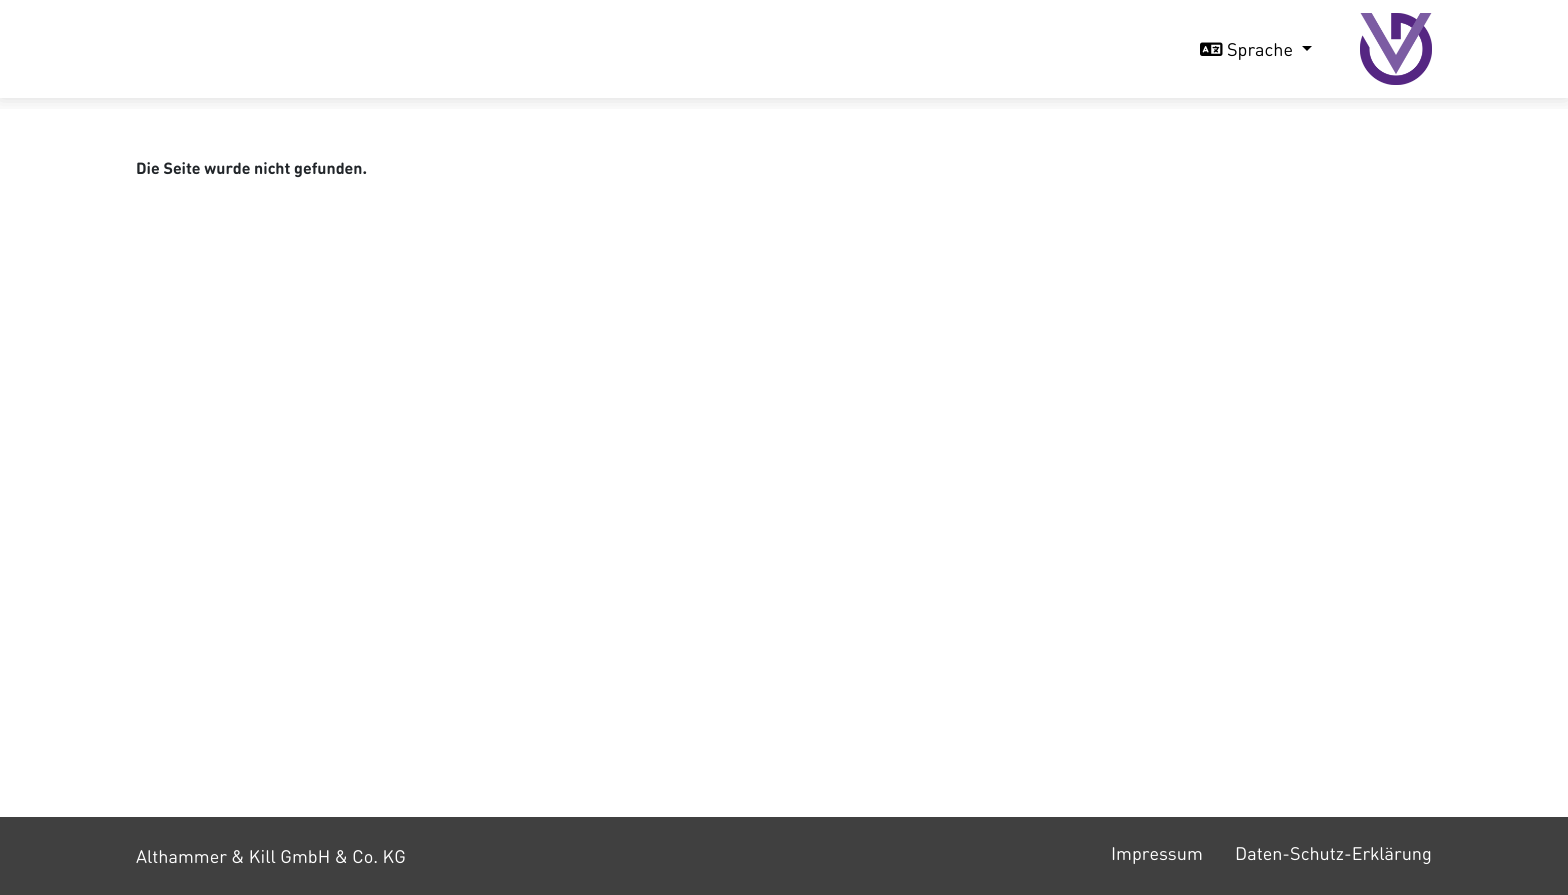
import math
import cairocffi as cairo

surface = cairo.ImageSurface(cairo.FORMAT_RGB24, 1568, 895)
cr = cairo.Context(surface)
options = cairo.FontOptions()
options.set_hint_metrics(cairo.HINT_METRICS_OFF)
options.set_hint_style(cairo.HINT_STYLE_NONE)
cr.set_font_options(options)
cr.set_miter_limit(4)


def use_color(code):
    cr.set_source_rgb(*(v / 255 for v in bytes.fromhex(code[-6:])))


def round_rect(x, y, w, h, r):
    cr.new_sub_path()
    for i, (u, v) in enumerate([(x + w - r, y + h - r), (x + r, y + h - r), (x + r, y + r), (x + w - r, y + r)]):
        cr.arc(u, v, r, i * math.pi / 2, (i + 1) * math.pi / 2)
    cr.close_path()


def shadow(x, y, w, h, r, blur, alpha):
    cr.push_group_with_content(cairo.CONTENT_ALPHA)
    cr.set_operator(cairo.OPERATOR_SOURCE)
    for i in range(15, -16, -2):
        e = blur * i / 6
        if min(w, h) + 2 * e > 0:
            cr.set_source_rgba(0, 0, 0, alpha * math.erfc((i - 1) / 8.5) / 2)
            round_rect(x - e, y - e, w + 2 * e, h + 2 * e, max(0, min(r + e + blur * .6, min(w, h) / 2 + e)))
            cr.fill()
    cr.mask(cr.pop_group())


def picture(path, x, y, w, h):
    cr.save()
    cr.set_source_surface(cairo.ImageSurface.create_from_png(path), x, y)
    cr.rectangle(x, y, w, h)
    cr.fill()
    cr.restore()


use_color("#ffffff")
cr.paint()
cr.save()
cr.rectangle(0, 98, 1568, 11)
cr.clip()
use_color("#000000")
shadow(0, 0, 1568, 98, 0, 10, 0.15)
cr.restore()
picture("img1.png", 1200, 42, 23, 14)
cr.select_font_face("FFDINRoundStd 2")
cr.set_font_size(18)
use_color("#000000")
cr.move_to(1227, 56)
cr.show_text("Sprache")
cr.new_path()
cr.move_to(1302, 46)
cr.line_to(1312, 46)
cr.line_to(1307, 51)
cr.close_path()
cr.fill()
picture("img2.png", 1360, 13, 72, 72)
cr.select_font_face("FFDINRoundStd")
cr.set_font_size(16)
use_color("#212529")
cr.move_to(136, 174)
cr.show_text("Die Seite wurde nicht gefunden.")
use_color("#404040")
cr.rectangle(0, 817, 1568, 78)
cr.fill()
cr.select_font_face("FFDINRoundStd 2")
cr.set_font_size(18)
use_color("#ffffff")
cr.move_to(136, 863)
cr.show_text("Althammer & Kill GmbH & Co. KG")
cr.move_to(1111, 860)
cr.show_text("Impressum")
cr.move_to(1235, 860)
cr.show_text("Daten-Schutz-Erklärung")
surface.write_to_png("result.png")
